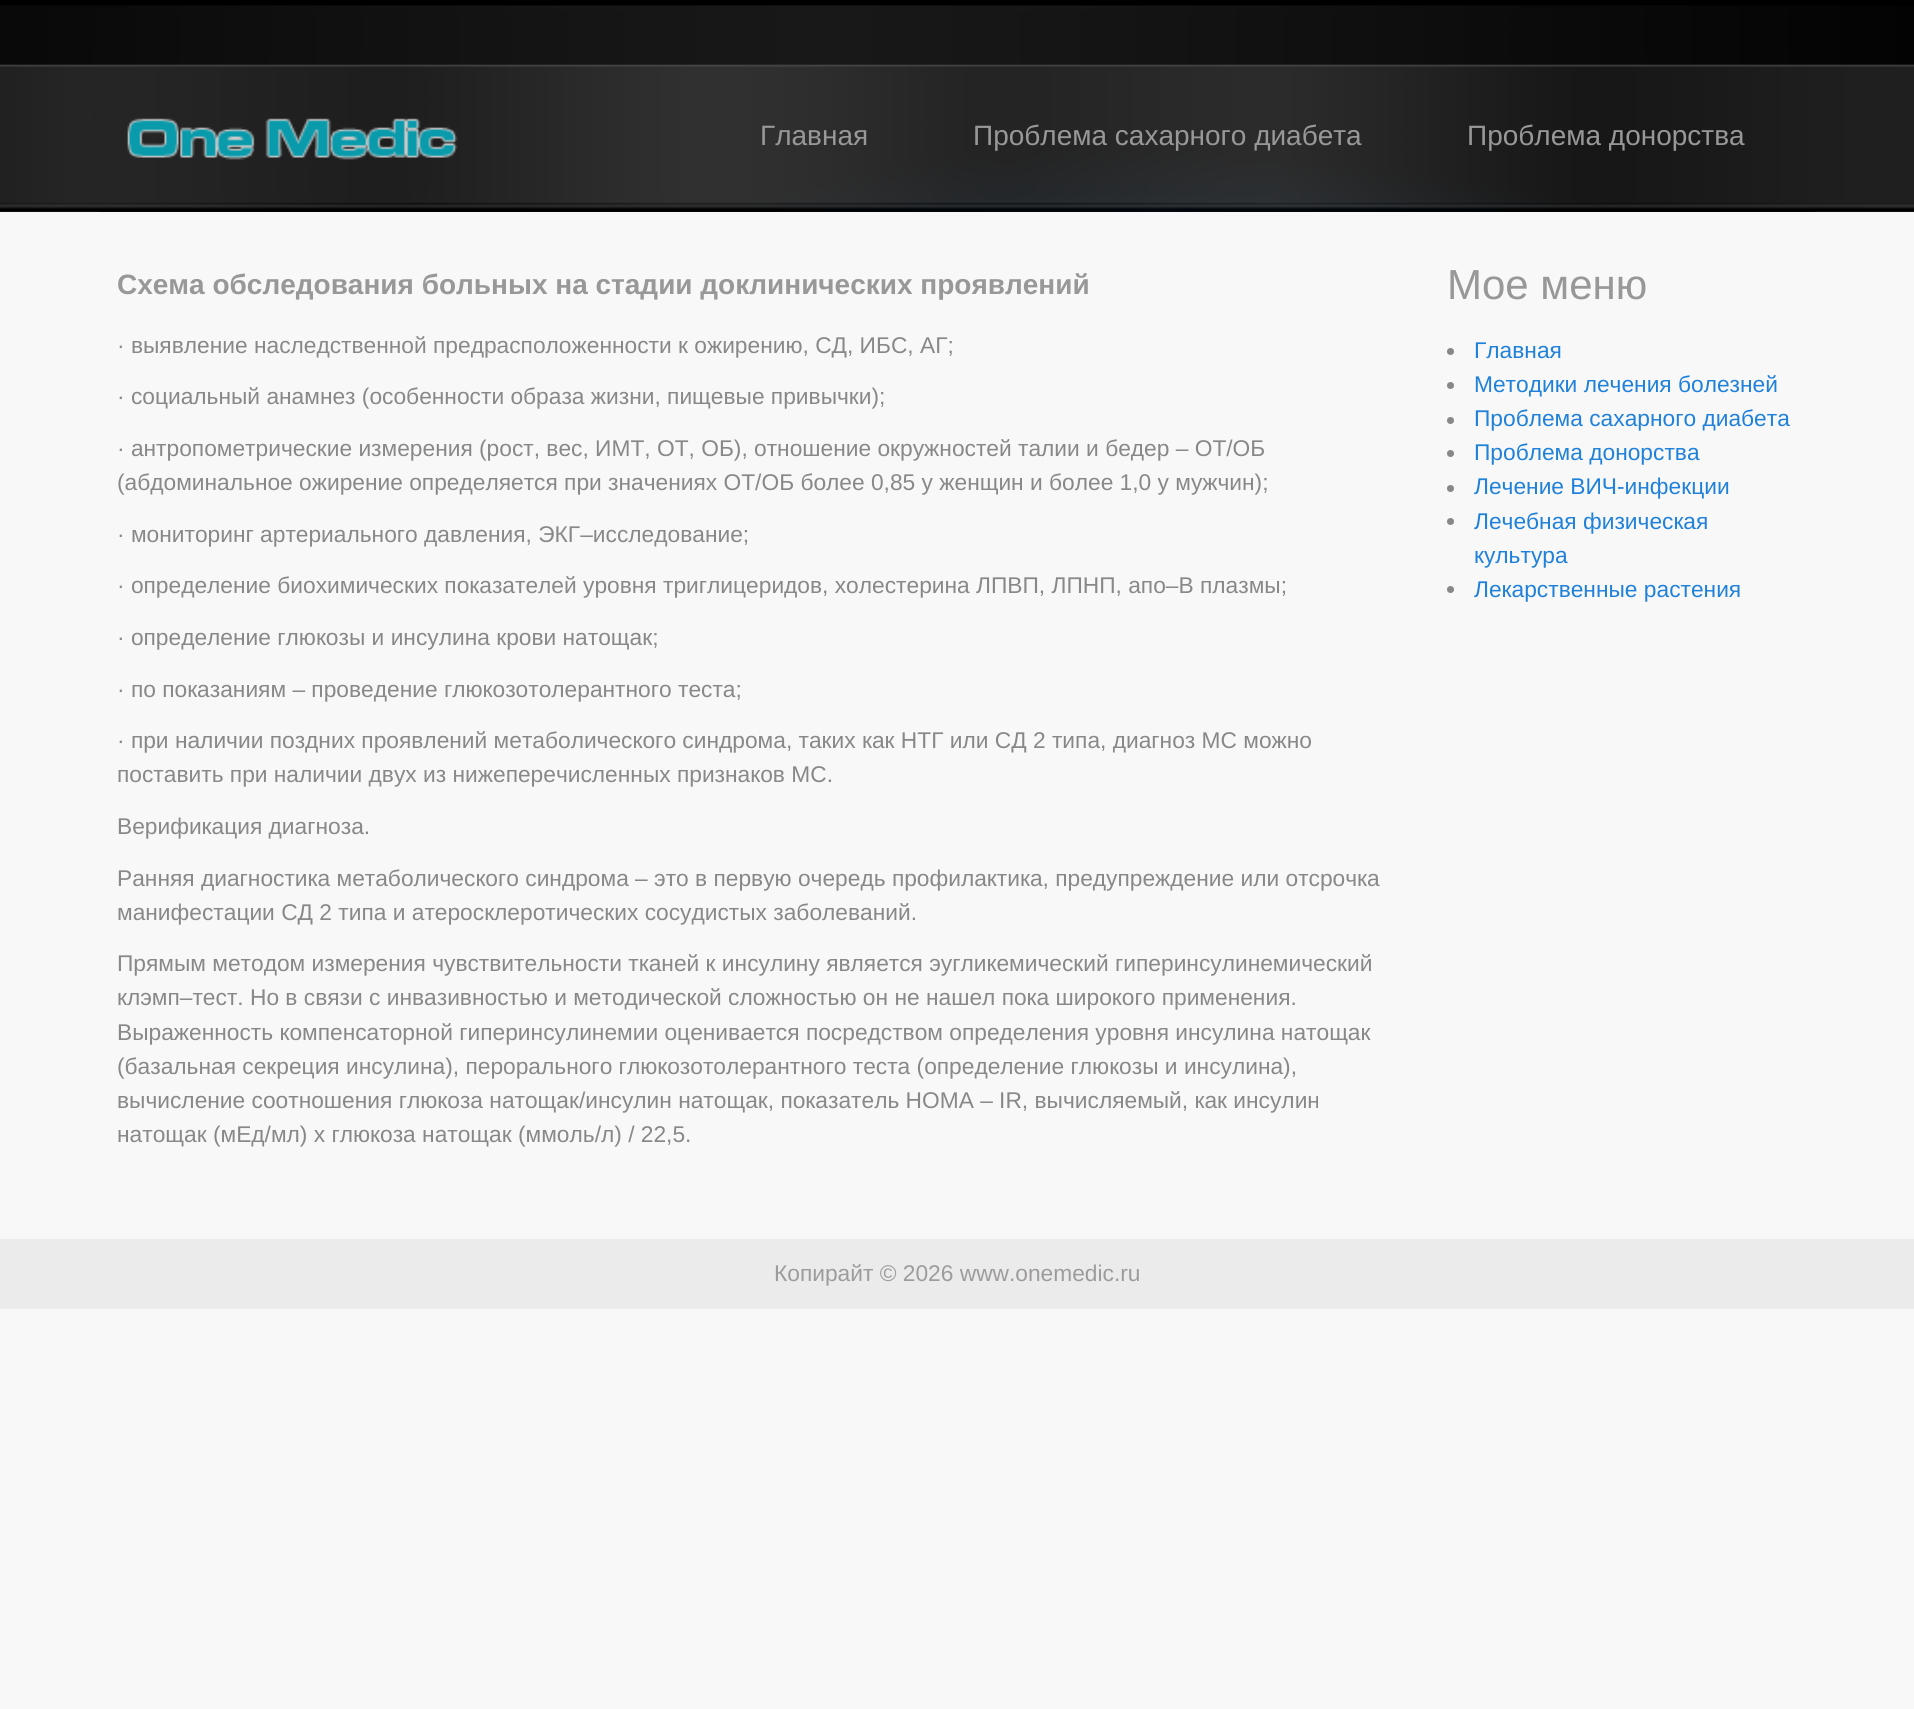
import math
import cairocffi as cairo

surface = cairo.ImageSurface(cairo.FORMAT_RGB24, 1914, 1709)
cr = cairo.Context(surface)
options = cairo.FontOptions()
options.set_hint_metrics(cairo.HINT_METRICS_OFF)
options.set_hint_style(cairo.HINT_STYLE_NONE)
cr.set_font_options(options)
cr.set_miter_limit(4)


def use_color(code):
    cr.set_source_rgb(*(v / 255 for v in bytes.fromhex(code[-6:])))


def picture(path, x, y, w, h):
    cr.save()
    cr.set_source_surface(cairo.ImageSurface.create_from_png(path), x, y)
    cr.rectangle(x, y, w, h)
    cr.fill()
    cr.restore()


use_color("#f8f8f8")
cr.paint()
picture("img1.png", 0, 0, 1914, 212)
picture("img2.png", 0, 5, 1914, 207)
picture("img3.png", 100, 211, 1715, 1)
picture("img4.png", 127, 118, 331, 42)
cr.select_font_face("Liberation Sans")
cr.set_font_size(28)
use_color("#989898")
cr.move_to(760, 145)
cr.show_text("Главная")
cr.move_to(973, 145)
cr.show_text("Проблема сахарного диабета")
cr.move_to(1467, 145)
cr.show_text("Проблема донорства")
cr.select_font_face("Liberation Sans", cairo.FONT_SLANT_NORMAL, cairo.FONT_WEIGHT_BOLD)
cr.move_to(117, 294)
cr.show_text("Схема обследования больных на стадии доклинических проявлений")
cr.select_font_face("Liberation Sans")
cr.set_font_size(22.75)
use_color("#888888")
cr.move_to(117, 353)
cr.show_text("· выявление наследственной предрасположенности к ожирению, СД, ИБС, АГ;")
cr.move_to(117, 404)
cr.show_text("· социальный анамнез (особенности образа жизни, пищевые привычки);")
cr.move_to(117, 456)
cr.show_text("· антропометрические измерения (рост, вес, ИМТ, ОТ, ОБ), отношение окружностей талии и бедер – ОТ/ОБ")
cr.move_to(117, 490)
cr.show_text("(абдоминальное ожирение определяется при значениях ОТ/ОБ более 0,85 у женщин и более 1,0 у мужчин);")
cr.move_to(117, 542)
cr.show_text("· мониторинг артериального давления, ЭКГ–исследование;")
cr.move_to(117, 593)
cr.show_text("· определение биохимических показателей уровня триглицеридов, холестерина ЛПВП, ЛПНП, апо–В плазмы;")
cr.move_to(117, 645)
cr.show_text("· определение глюкозы и инсулина крови натощак;")
cr.move_to(117, 697)
cr.show_text("· по показаниям – проведение глюкозотолерантного теста;")
cr.move_to(117, 748)
cr.show_text("· при наличии поздних проявлений метаболического синдрома, таких как НТГ или СД 2 типа, диагноз МС можно")
cr.move_to(117, 782)
cr.show_text("поставить при наличии двух из нижеперечисленных признаков МС.")
cr.move_to(117, 834)
cr.show_text("Верификация диагноза.")
cr.move_to(117, 886)
cr.show_text("Ранняя диагностика метаболического синдрома – это в первую очередь профилактика, предупреждение или отсрочка")
cr.move_to(117, 920)
cr.show_text("манифестации СД 2 типа и атеросклеротических сосудистых заболеваний.")
cr.move_to(117, 971)
cr.show_text("Прямым методом измерения чувствительности тканей к инсулину является эугликемический гиперинсулинемический")
cr.move_to(117, 1005)
cr.show_text("клэмп–тест. Но в связи с инвазивностью и методической сложностью он не нашел пока широкого применения.")
cr.move_to(117, 1040)
cr.show_text("Выраженность компенсаторной гиперинсулинемии оценивается посредством определения уровня инсулина натощак")
cr.move_to(117, 1074)
cr.show_text("(базальная секреция инсулина), перорального глюкозотолерантного теста (определение глюкозы и инсулина),")
cr.move_to(117, 1108)
cr.show_text("вычисление соотношения глюкоза натощак/инсулин натощак, показатель НОМА – IR, вычисляемый, как инсулин")
cr.move_to(117, 1142)
cr.show_text("натощак (мЕд/мл) х глюкоза натощак (ммоль/л) / 22,5.")
cr.set_font_size(42)
use_color("#989898")
cr.move_to(1447, 299)
cr.show_text("Мое меню")
use_color("#888888")
cr.new_path()
cr.arc(1450.5, 351.5, 3.5, 0, 2 * math.pi)
cr.fill()
cr.set_font_size(22.75)
use_color("#2081da")
cr.move_to(1474, 358)
cr.show_text("Главная")
use_color("#888888")
cr.new_path()
cr.arc(1450.5, 385.5, 3.5, 0, 2 * math.pi)
cr.fill()
use_color("#2081da")
cr.move_to(1474, 392)
cr.show_text("Методики лечения болезней")
use_color("#888888")
cr.new_path()
cr.arc(1450.5, 420.5, 3.5, 0, 2 * math.pi)
cr.fill()
use_color("#2081da")
cr.move_to(1474, 426)
cr.show_text("Проблема сахарного диабета")
use_color("#888888")
cr.new_path()
cr.arc(1450.5, 453.5, 3.5, 0, 2 * math.pi)
cr.fill()
use_color("#2081da")
cr.move_to(1474, 460)
cr.show_text("Проблема донорства")
use_color("#888888")
cr.new_path()
cr.arc(1450.5, 488.5, 3.5, 0, 2 * math.pi)
cr.fill()
use_color("#2081da")
cr.move_to(1474, 494)
cr.show_text("Лечение ВИЧ-инфекции")
use_color("#888888")
cr.new_path()
cr.arc(1450.5, 521.5, 3.5, 0, 2 * math.pi)
cr.fill()
use_color("#2081da")
cr.move_to(1474, 529)
cr.show_text("Лечебная физическая")
cr.move_to(1474, 563)
cr.show_text("культура")
use_color("#888888")
cr.new_path()
cr.arc(1450.5, 589.5, 3.5, 0, 2 * math.pi)
cr.fill()
use_color("#2081da")
cr.move_to(1474, 597)
cr.show_text("Лекарственные растения")
use_color("#ebebeb")
cr.rectangle(0, 1239, 1914, 70)
cr.fill()
use_color("#9e9b9b")
cr.move_to(774, 1281)
cr.show_text("Копирайт © 2026 www.onemedic.ru")
surface.write_to_png("result.png")
